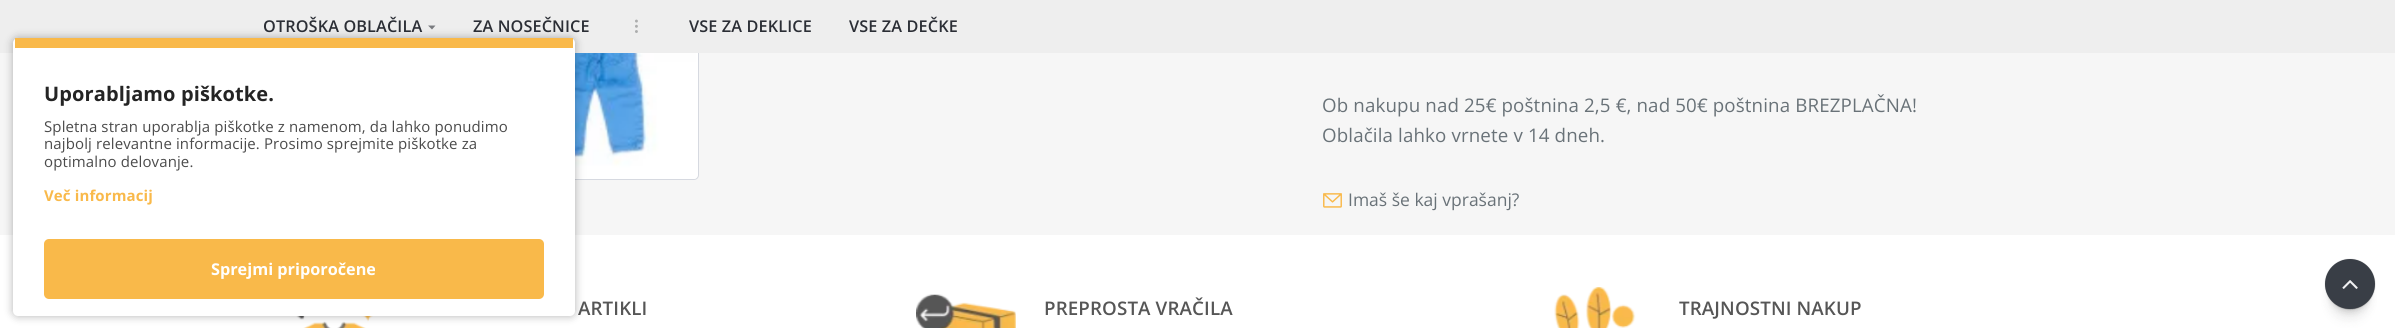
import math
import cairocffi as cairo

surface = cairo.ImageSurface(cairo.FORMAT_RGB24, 2395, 328)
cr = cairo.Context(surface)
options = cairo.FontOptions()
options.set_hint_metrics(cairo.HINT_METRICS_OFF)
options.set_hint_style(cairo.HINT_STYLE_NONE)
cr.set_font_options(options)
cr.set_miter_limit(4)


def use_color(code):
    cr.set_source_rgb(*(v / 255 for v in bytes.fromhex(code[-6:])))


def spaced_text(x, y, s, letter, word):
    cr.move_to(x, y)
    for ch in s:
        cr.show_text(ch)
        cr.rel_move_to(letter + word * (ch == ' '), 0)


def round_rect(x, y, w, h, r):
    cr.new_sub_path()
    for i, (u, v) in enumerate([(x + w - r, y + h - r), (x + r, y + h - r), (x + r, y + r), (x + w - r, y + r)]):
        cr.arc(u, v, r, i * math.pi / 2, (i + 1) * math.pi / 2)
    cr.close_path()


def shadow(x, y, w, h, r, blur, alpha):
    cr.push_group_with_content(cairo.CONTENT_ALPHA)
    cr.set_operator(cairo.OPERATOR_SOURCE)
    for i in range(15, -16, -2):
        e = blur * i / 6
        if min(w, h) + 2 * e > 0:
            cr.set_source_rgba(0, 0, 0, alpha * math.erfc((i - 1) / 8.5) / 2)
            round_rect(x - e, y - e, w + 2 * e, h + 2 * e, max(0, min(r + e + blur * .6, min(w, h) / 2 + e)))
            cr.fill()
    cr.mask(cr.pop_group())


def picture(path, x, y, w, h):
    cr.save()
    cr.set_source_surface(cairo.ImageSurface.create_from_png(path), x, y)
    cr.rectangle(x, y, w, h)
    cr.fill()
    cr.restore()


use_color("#f6f6f6")
cr.paint()
use_color("#ffffff")
round_rect(488.5, -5.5, 210, 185, 4.5)
cr.fill_preserve()
use_color("#d6d9e0")
cr.set_line_width(1)
cr.stroke()
use_color("#eeeeee")
cr.rectangle(0, 0, 2395, 53)
cr.fill()
cr.select_font_face("Open Sans SemiBold")
cr.set_font_size(16.25)
use_color("#2b2e35")
spaced_text(263, 32, "OTROŠKA OBLAČILA", 0.12, 0)
use_color("#797b7f")
cr.new_path()
cr.move_to(428, 25.5)
cr.line_to(435.5, 25.5)
cr.line_to(432, 29.5)
cr.close_path()
cr.fill()
use_color("#2b2e35")
spaced_text(473, 32, "ZA NOSEČNICE", 0.12, 0)
picture("img1.png", 635, 19, 3, 14)
spaced_text(689, 32, "VSE ZA DEKLICE", 0.12, 0)
spaced_text(849, 32, "VSE ZA DEČKE", 0.12, 0)
picture("img2.png", 575, 53, 121, 126)
cr.select_font_face("Open Sans")
cr.set_font_size(18.75)
use_color("#697278")
spaced_text(1322, 112, "Ob nakupu nad 25€ poštnina 2,5 €, nad 50€ poštnina BREZPLAČNA!", 0.12, 0)
spaced_text(1322, 142, "Oblačila lahko vrnete v 14 dneh.", 0.12, 0)
picture("img3.png", 1323, 193, 19, 15)
cr.set_font_size(17.5)
cr.move_to(1348, 206)
cr.show_text("Imaš še kaj vprašanj?")
use_color("#ffffff")
cr.rectangle(0, 235, 2395, 93)
cr.fill()
cr.select_font_face("Open Sans SemiBold")
cr.set_font_size(18.75)
use_color("#565656")
spaced_text(578, 315, "ARTIKLI", 0.12, 0)
picture("img4.png", 296, 316, 77, 12)
picture("img5.png", 916, 294, 100, 34)
spaced_text(1044, 315, "PREPROSTA VRAČILA", 0.12, 0)
picture("img6.png", 1554, 287, 82, 41)
spaced_text(1679, 315, "TRAJNOSTNI NAKUP", 0.12, 0)
use_color("#000000")
shadow(13, 38, 562, 278, 5, 4.5, 0.3)
use_color("#ffffff")
round_rect(13, 38, 562, 278, 5)
cr.fill()
use_color("#f9b94a")
cr.rectangle(15, 38, 558, 10)
cr.fill()
cr.select_font_face("Open Sans", cairo.FONT_SLANT_NORMAL, cairo.FONT_WEIGHT_BOLD)
cr.set_font_size(20)
use_color("#242424")
spaced_text(44, 101, "Uporabljamo piškotke.", 0.12, 0)
cr.select_font_face("Open Sans")
cr.set_font_size(15)
use_color("#4b4b4b")
spaced_text(44, 132, "Spletna stran uporablja piškotke z namenom, da lahko ponudimo", 0.12, 0)
spaced_text(44, 149, "najbolj relevantne informacije. Prosimo sprejmite piškotke za", 0.12, 0)
spaced_text(44, 167, "optimalno delovanje.", 0.12, 0)
cr.select_font_face("Open Sans", cairo.FONT_SLANT_NORMAL, cairo.FONT_WEIGHT_BOLD)
use_color("#f9b94a")
spaced_text(44, 201, "Več informacij", 0.12, 0)
round_rect(44, 239, 500, 60, 5)
cr.fill()
cr.set_font_size(16.25)
use_color("#ffffff")
cr.move_to(211, 275)
cr.show_text("Sprejmi priporočene")
use_color("#000000")
shadow(2329, 281, 40, 40, 20, 7, 0.04)
shadow(2329, 275, 41, 41, 20.5, 5, 0.06)
shadow(2329, 270, 42, 43, 21, 3, 0.07)
shadow(2328, 266, 43, 44, 21.5, 2, 0.08)
shadow(2328, 264, 45, 45, 22.5, 1, 0.1)
shadow(2326, 263, 47, 46, 23, 0.5, 0.11)
shadow(2326, 261, 48, 48, 24, 0.5, 0.12)
shadow(2326, 260, 49, 49, 24.5, 0.5, 0.14)
shadow(2325, 259, 50, 50, 25, 0.5, 0.15)
use_color("#393e46")
cr.arc(2350, 284, 25, 0, 2 * math.pi)
cr.fill()
picture("img7.png", 2342, 280, 16, 9)
surface.write_to_png("result.png")
